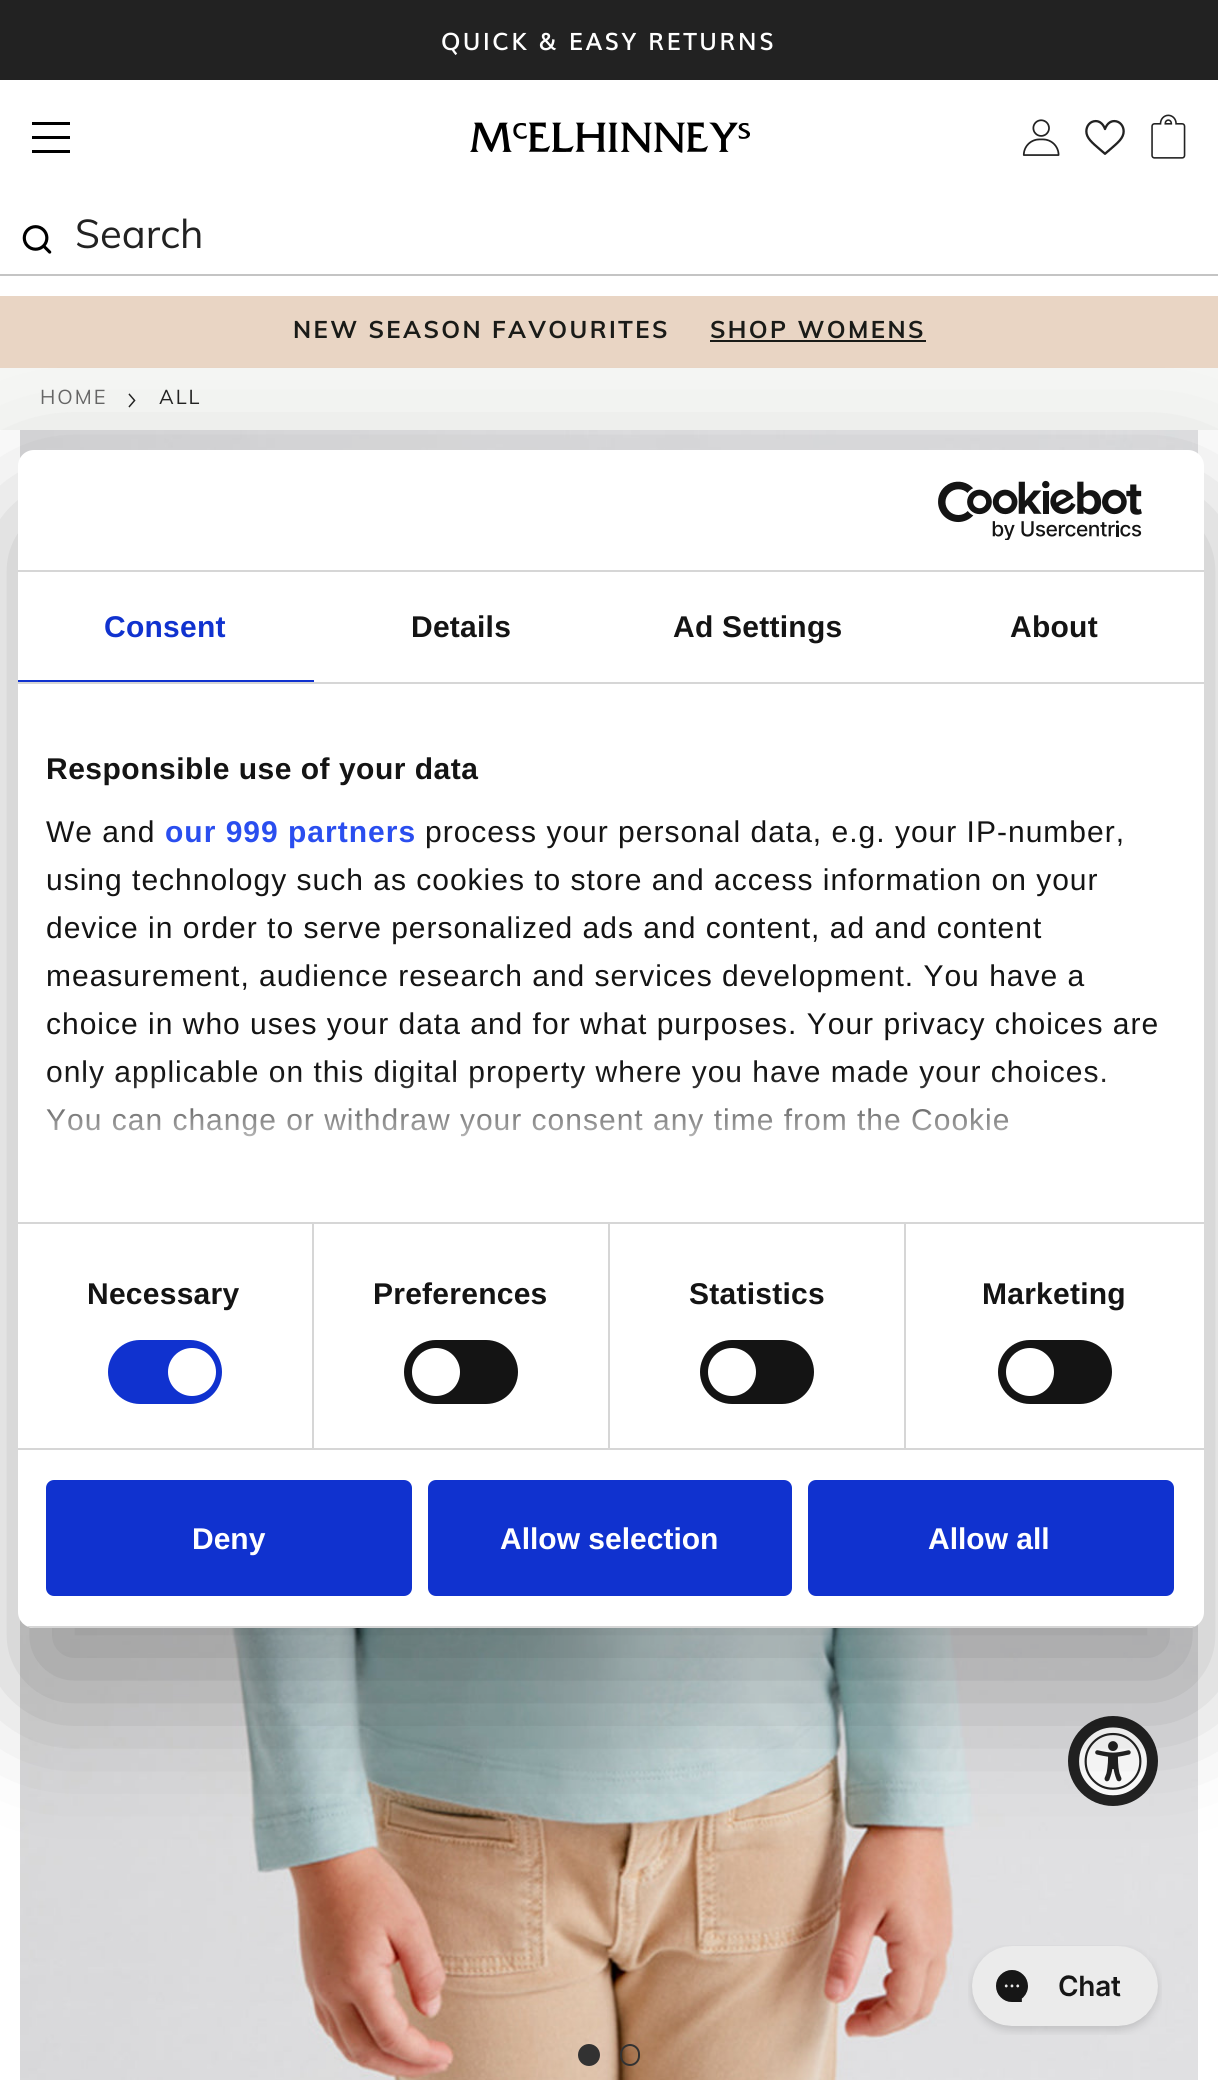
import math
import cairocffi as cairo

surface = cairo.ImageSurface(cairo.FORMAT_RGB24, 1218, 2080)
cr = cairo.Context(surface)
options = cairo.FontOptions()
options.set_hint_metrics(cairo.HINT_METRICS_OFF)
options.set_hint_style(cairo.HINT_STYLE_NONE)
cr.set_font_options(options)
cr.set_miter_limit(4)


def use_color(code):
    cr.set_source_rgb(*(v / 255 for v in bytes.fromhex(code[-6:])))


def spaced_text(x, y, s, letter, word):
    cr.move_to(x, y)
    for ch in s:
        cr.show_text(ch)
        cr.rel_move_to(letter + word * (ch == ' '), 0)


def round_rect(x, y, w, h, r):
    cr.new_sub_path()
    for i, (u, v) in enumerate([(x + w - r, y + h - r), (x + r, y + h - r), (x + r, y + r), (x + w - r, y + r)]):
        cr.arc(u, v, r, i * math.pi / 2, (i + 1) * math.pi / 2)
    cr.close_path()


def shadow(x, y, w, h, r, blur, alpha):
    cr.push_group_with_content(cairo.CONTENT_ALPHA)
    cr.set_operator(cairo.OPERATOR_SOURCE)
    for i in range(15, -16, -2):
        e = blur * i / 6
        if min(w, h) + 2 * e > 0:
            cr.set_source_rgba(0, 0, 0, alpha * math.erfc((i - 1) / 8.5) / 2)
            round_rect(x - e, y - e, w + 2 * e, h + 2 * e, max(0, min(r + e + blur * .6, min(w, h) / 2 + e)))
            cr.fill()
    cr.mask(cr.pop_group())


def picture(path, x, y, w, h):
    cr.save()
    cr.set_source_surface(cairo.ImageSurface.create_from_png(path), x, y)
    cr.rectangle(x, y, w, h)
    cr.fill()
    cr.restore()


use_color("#ffffff")
cr.paint()
use_color("#222222")
cr.rectangle(0, 0, 1218, 80)
cr.fill()
cr.select_font_face("Muli SemiBold")
cr.set_font_size(24)
use_color("#ffffff")
spaced_text(441, 50, "QUICK & EASY RETURNS", 2.4, 0)
use_color("#000000")
cr.rectangle(32, 122, 38, 3)
cr.fill()
cr.rectangle(32, 150, 38, 3)
cr.fill()
cr.rectangle(32, 136, 38, 3)
cr.fill()
picture("img1.png", 470, 122, 280, 31)
picture("img2.png", 1022, 119, 38, 37)
picture("img3.png", 1085, 119, 40, 36)
picture("img4.png", 1151, 114, 35, 45)
use_color("#c4c4c4")
cr.rectangle(0, 274, 1218, 2)
cr.fill()
picture("img5.png", 22, 225, 30, 29)
cr.select_font_face("Muli")
cr.set_font_size(40)
use_color("#222222")
cr.move_to(75, 248)
cr.show_text("Search")
use_color("#e9d5c4")
cr.rectangle(0, 296, 1218, 72)
cr.fill()
cr.select_font_face("Muli", cairo.FONT_SLANT_NORMAL, cairo.FONT_WEIGHT_BOLD)
cr.set_font_size(24)
use_color("#1a1b18")
spaced_text(293, 338, "NEW SEASON FAVOURITES", 2.4, 0)
spaced_text(710, 338, "SHOP WOMENS", 2.4, 0)
cr.rectangle(710, 340, 216, 2)
cr.fill()
use_color("#f5f6f4")
cr.rectangle(0, 368, 1218, 62)
cr.fill()
cr.select_font_face("Muli")
cr.set_font_size(20)
use_color("#666666")
spaced_text(40, 404, "HOME", 2, 0)
picture("img6.png", 128, 393, 8, 15)
use_color("#222222")
spaced_text(159, 404, "ALL", 2, 0)
picture("img7.png", 20, 430, 1178, 1650)
use_color("#323232")
cr.arc(589, 2055, 10, 0, 2 * math.pi)
cr.fill_preserve()
cr.stroke()
round_rect(621, 2045, 18, 20, 9)
cr.stroke()
use_color("#222222")
cr.arc(1113, 1761, 45, 0, 2 * math.pi)
cr.fill()
picture("img9.png", 1079, 1727, 68, 69)
use_color("#000000")
shadow(18, 514, 1186, 1178, 16, 68, 0.3)
use_color("#ffffff")
round_rect(18, 450, 1186, 1178, 16)
cr.fill()
use_color("#d6d6d6")
cr.rectangle(18, 570, 1186, 2)
cr.fill()
picture("img8.png", 938, 480, 204, 60)
cr.rectangle(18, 682, 1186, 2)
cr.fill()
use_color("#1032cf")
cr.rectangle(18, 680, 296, 2)
cr.fill()
cr.select_font_face("Liberation Sans", cairo.FONT_SLANT_NORMAL, cairo.FONT_WEIGHT_BOLD)
cr.set_font_size(30)
spaced_text(104, 637, "Consent", 0.25, 0)
use_color("#141414")
spaced_text(411, 637, "Details", 0.25, 0)
spaced_text(673, 637, "Ad Settings", 0.25, 0)
spaced_text(1010, 637, "About", 0.25, 0)
use_color("#d6d6d6")
cr.rectangle(18, 1222, 1186, 2)
cr.fill()
use_color("#141414")
spaced_text(46, 779, "Responsible use of your data", 0.5, 0)
cr.select_font_face("Liberation Sans")
spaced_text(46, 842, "We and", 1, 0)
cr.select_font_face("Liberation Sans", cairo.FONT_SLANT_NORMAL, cairo.FONT_WEIGHT_BOLD)
use_color("#2a4eef")
spaced_text(165, 842, "our 999 partners", 1, 0)
cr.select_font_face("Liberation Sans")
use_color("#141414")
spaced_text(425, 842, "process your personal data, e.g. your IP-number,", 1, 0)
spaced_text(46, 890, "using technology such as cookies to store and access information on your", 1, 0)
spaced_text(46, 938, "device in order to serve personalized ads and content, ad and content", 1, 0)
spaced_text(46, 986, "measurement, audience research and services development. You have a", 1, 0)
spaced_text(46, 1034, "choice in who uses your data and for what purposes. Your privacy choices are", 1, 0)
spaced_text(46, 1082, "only applicable on this digital property where you have made your choices.", 1, 0)
spaced_text(46, 1130, "You can change or withdraw your consent any time from the Cookie", 1, 0)
gradient = cairo.LinearGradient(597, 1223, 597, 1073)
gradient.add_color_stop_rgba(0, 1, 1, 1, 1)
gradient.add_color_stop_rgba(0.5, 1, 1, 1, 0.8)
gradient.add_color_stop_rgba(1, 1, 1, 1, 0)
cr.set_source(gradient)
cr.rectangle(46, 1075, 1060, 62)
cr.fill()
use_color("#d6d6d6")
cr.rectangle(18, 1448, 1186, 2)
cr.fill()
cr.rectangle(312, 1224, 2, 224)
cr.fill()
cr.select_font_face("Liberation Sans", cairo.FONT_SLANT_NORMAL, cairo.FONT_WEIGHT_BOLD)
use_color("#141414")
spaced_text(87, 1304, "Necessary", 0.25, 0)
use_color("#1032cf")
round_rect(108, 1340, 114, 64, 32)
cr.fill()
use_color("#ffffff")
cr.arc(192, 1372, 24, 0, 2 * math.pi)
cr.fill()
use_color("#d6d6d6")
cr.rectangle(608, 1224, 2, 224)
cr.fill()
use_color("#141414")
spaced_text(373, 1304, "Preferences", 0.25, 0)
round_rect(404, 1340, 114, 64, 32)
cr.fill()
use_color("#ffffff")
cr.arc(436, 1372, 24, 0, 2 * math.pi)
cr.fill()
use_color("#d6d6d6")
cr.rectangle(904, 1224, 2, 224)
cr.fill()
use_color("#141414")
spaced_text(689, 1304, "Statistics", 0.25, 0)
round_rect(700, 1340, 114, 64, 32)
cr.fill()
use_color("#ffffff")
cr.arc(732, 1372, 24, 0, 2 * math.pi)
cr.fill()
use_color("#141414")
spaced_text(982, 1304, "Marketing", 0.25, 0)
round_rect(998, 1340, 114, 64, 32)
cr.fill()
use_color("#ffffff")
cr.arc(1030, 1372, 24, 0, 2 * math.pi)
cr.fill()
cr.save()
round_rect(18, 450, 1186, 1178, 16)
cr.clip()
use_color("#d6d6d6")
cr.rectangle(18, 1626, 1186, 2)
cr.fill()
cr.restore()
use_color("#1032cf")
round_rect(48, 1482, 362, 112, 6)
cr.fill_preserve()
cr.set_line_width(4)
cr.stroke()
use_color("#ffffff")
cr.move_to(192, 1549)
cr.show_text("Deny")
use_color("#1032cf")
round_rect(430, 1482, 360, 112, 6)
cr.fill_preserve()
cr.stroke()
use_color("#ffffff")
cr.move_to(500, 1549)
cr.show_text("Allow selection")
use_color("#1032cf")
round_rect(810, 1482, 362, 112, 6)
cr.fill_preserve()
cr.stroke()
use_color("#ffffff")
cr.move_to(928, 1549)
cr.show_text("Allow all")
picture("img10.png", 968, 1945, 194, 90)
surface.write_to_png("result.png")
